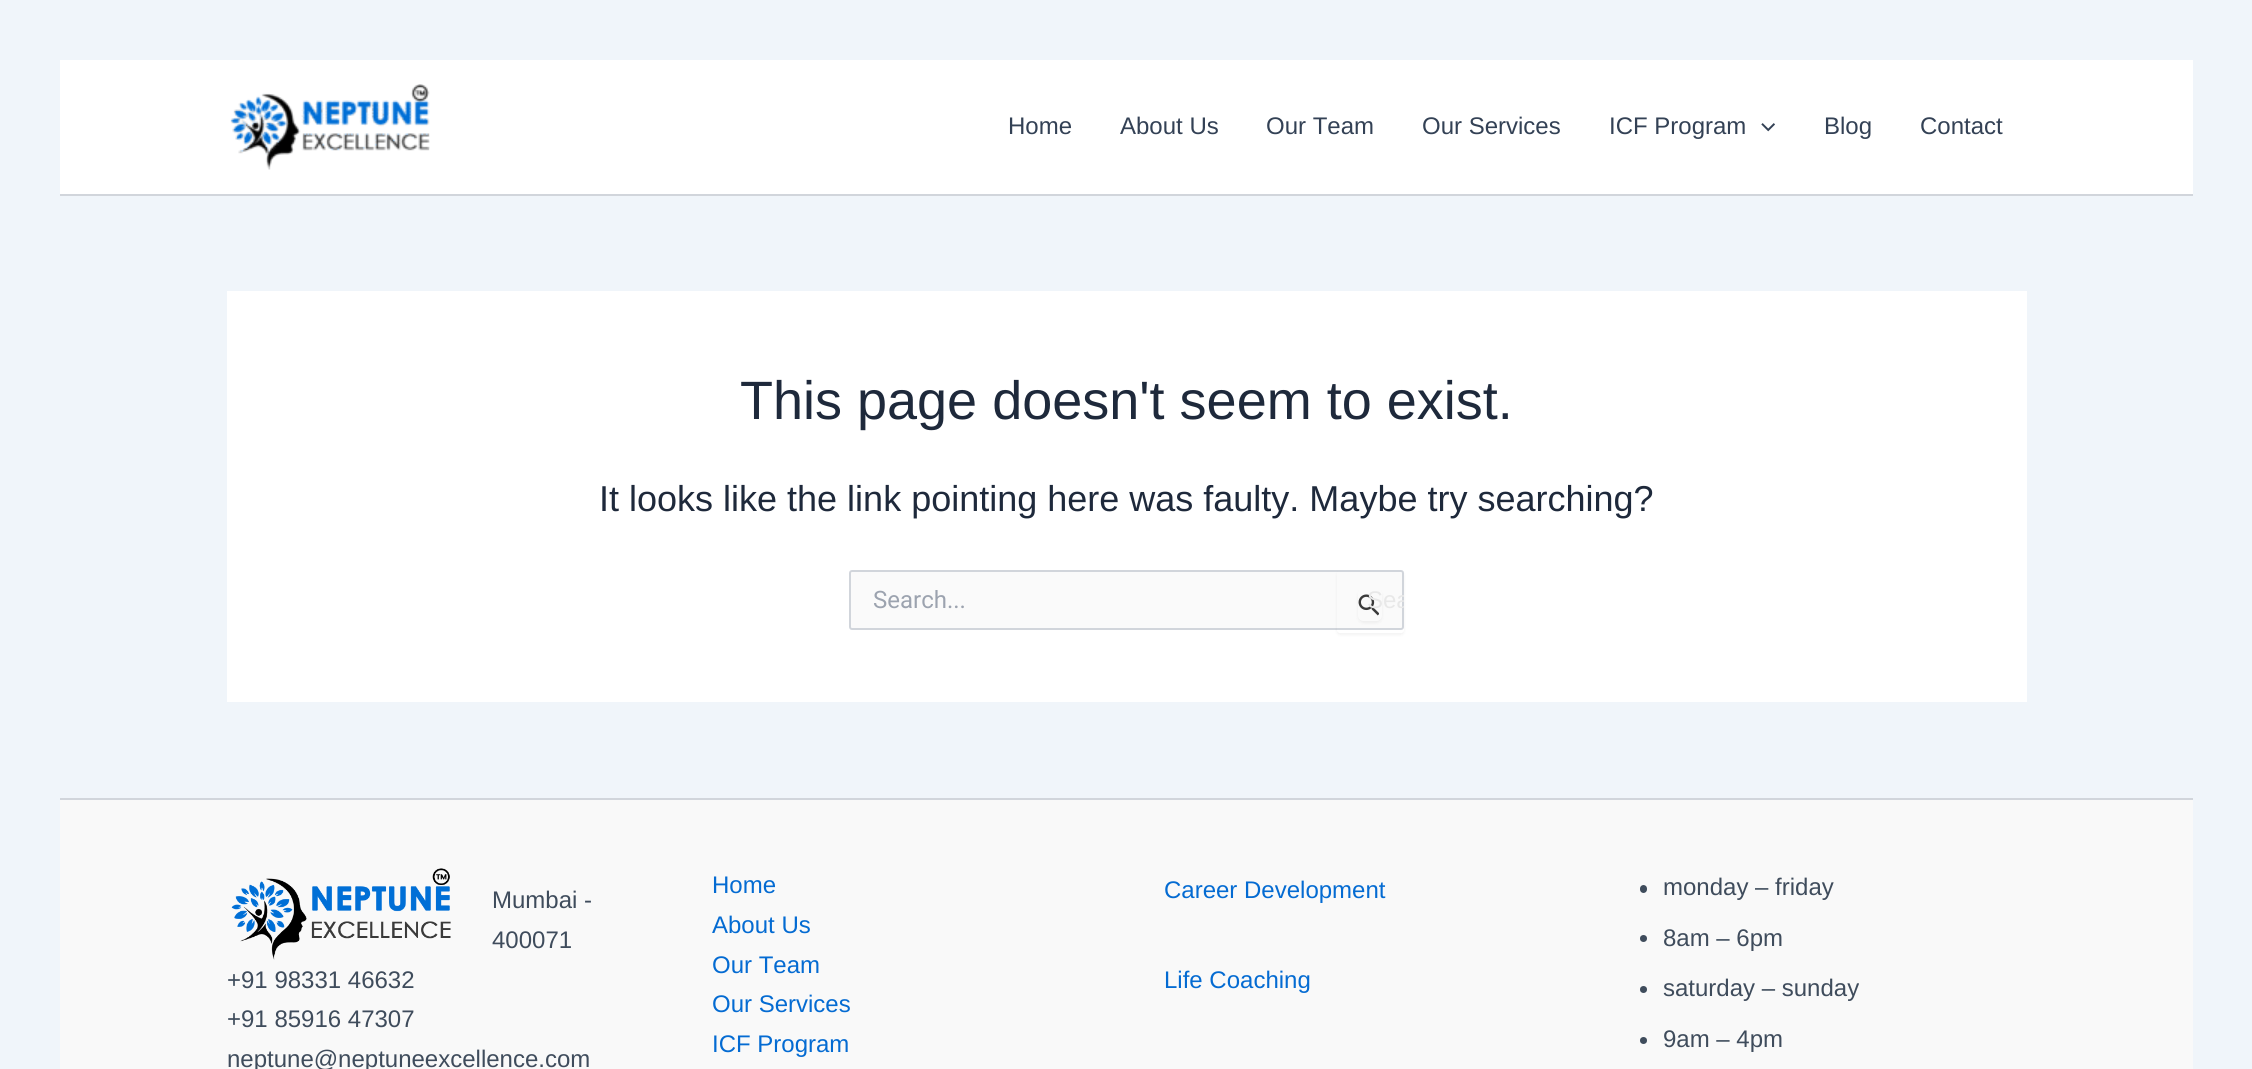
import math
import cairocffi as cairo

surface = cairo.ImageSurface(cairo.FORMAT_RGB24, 2252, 1069)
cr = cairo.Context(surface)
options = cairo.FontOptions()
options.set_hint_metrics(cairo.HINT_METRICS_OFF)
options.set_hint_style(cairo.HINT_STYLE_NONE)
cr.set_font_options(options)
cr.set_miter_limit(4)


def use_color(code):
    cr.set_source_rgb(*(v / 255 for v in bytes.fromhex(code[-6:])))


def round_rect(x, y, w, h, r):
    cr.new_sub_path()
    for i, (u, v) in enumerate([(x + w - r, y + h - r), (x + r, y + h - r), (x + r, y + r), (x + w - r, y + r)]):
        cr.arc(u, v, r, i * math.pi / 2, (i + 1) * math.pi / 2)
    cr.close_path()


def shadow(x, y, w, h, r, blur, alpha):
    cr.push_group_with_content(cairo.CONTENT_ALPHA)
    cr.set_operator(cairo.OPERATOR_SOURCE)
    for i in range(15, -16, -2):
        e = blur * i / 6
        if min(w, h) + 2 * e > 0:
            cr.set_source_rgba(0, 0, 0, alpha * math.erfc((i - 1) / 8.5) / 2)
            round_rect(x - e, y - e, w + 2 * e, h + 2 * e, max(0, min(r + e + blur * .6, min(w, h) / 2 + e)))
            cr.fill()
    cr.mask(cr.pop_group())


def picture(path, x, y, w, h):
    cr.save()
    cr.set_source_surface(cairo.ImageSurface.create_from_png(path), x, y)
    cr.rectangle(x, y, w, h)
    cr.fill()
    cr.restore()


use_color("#f0f5fa")
cr.paint()
use_color("#ffffff")
cr.rectangle(60, 60, 2133, 134)
cr.fill()
use_color("#d1d5db")
cr.rectangle(60, 194, 2133, 2)
cr.fill()
picture("img1.png", 230, 84, 200, 86)
cr.select_font_face("Liberation Sans")
cr.set_font_size(24)
use_color("#334155")
cr.move_to(1008, 134)
cr.show_text("Home")
cr.move_to(1120, 134)
cr.show_text("About Us")
cr.move_to(1266, 134)
cr.show_text("Our Team")
cr.move_to(1422, 134)
cr.show_text("Our Services")
cr.move_to(1609, 134)
cr.show_text("ICF Program")
picture("img2.png", 1761, 123, 14, 9)
cr.move_to(1824, 134)
cr.show_text("Blog")
cr.move_to(1920, 134)
cr.show_text("Contact")
use_color("#ffffff")
cr.rectangle(227, 291, 1800, 411)
cr.fill()
cr.set_font_size(54)
use_color("#1e293b")
cr.move_to(740, 419)
cr.show_text("This page doesn't seem to exist.")
cr.set_font_size(36)
cr.move_to(599, 511)
cr.show_text("It looks like the link pointing here was faulty. Maybe try searching?")
use_color("#fafafa")
round_rect(850, 571, 553, 58, 2)
cr.fill_preserve()
use_color("#d1d5db")
cr.stroke()
cr.select_font_face("Roboto")
cr.set_font_size(24)
use_color("#9ca3af")
cr.move_to(873, 608)
cr.show_text("Search...")
cr.save()
cr.set_fill_rule(cairo.FILL_RULE_EVEN_ODD)
cr.new_path()
cr.move_to(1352, 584)
cr.line_to(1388, 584)
cr.line_to(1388, 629)
cr.line_to(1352, 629)
cr.close_path()
cr.move_to(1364, 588)
cr.line_to(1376, 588)
cr.curve_to(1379.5, 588, 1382, 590.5, 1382, 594)
cr.line_to(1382, 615)
cr.curve_to(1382, 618.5, 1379.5, 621, 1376, 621)
cr.line_to(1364, 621)
cr.curve_to(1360.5, 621, 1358, 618.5, 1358, 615)
cr.line_to(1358, 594)
cr.curve_to(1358, 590.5, 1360.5, 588, 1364, 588)
cr.close_path()
cr.clip()
use_color("#000000")
shadow(1358, 590, 24, 33, 6, 1.5, 0.05)
cr.restore()
picture("img3.png", 1358, 594, 21, 22)
cr.save()
cr.set_fill_rule(cairo.FILL_RULE_EVEN_ODD)
cr.new_path()
cr.move_to(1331, 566)
cr.line_to(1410, 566)
cr.line_to(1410, 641)
cr.line_to(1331, 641)
cr.close_path()
cr.move_to(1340, 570)
cr.line_to(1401, 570)
cr.curve_to(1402.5, 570, 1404, 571.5, 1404, 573)
cr.line_to(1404, 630)
cr.curve_to(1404, 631.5, 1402.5, 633, 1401, 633)
cr.line_to(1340, 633)
cr.curve_to(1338.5, 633, 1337, 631.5, 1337, 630)
cr.line_to(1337, 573)
cr.curve_to(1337, 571.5, 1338.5, 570, 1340, 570)
cr.close_path()
cr.clip()
use_color("#000000")
shadow(1337, 572, 67, 63, 3, 1.5, 0.05)
cr.restore()
cr.save()
round_rect(1337, 570, 67, 63, 3)
cr.clip()
cr.select_font_face("Liberation Sans")
use_color("#e8e8e8")
cr.move_to(1367, 608)
cr.show_text("Sea")
cr.restore()
use_color("#f9f9f9")
cr.rectangle(60, 800, 2133, 269)
cr.fill()
use_color("#d1d5db")
cr.rectangle(60, 798, 2133, 2)
cr.fill()
picture("img4.png", 231, 868, 220, 92)
cr.select_font_face("Liberation Sans")
use_color("#3f4c5c")
cr.move_to(492, 908)
cr.show_text("Mumbai -")
cr.move_to(492, 948)
cr.show_text("400071")
cr.move_to(227, 988)
cr.show_text("+91 98331 46632")
cr.move_to(227, 1027)
cr.show_text("+91 85916 47307")
cr.move_to(227, 1067)
cr.show_text("neptune@neptuneexcellence.com")
use_color("#046bd2")
cr.move_to(712, 893)
cr.show_text("Home")
cr.move_to(712, 933)
cr.show_text("About Us")
cr.move_to(712, 973)
cr.show_text("Our Team")
cr.move_to(712, 1012)
cr.show_text("Our Services")
cr.move_to(712, 1052)
cr.show_text("ICF Program")
cr.move_to(1164, 898)
cr.show_text("Career Development")
cr.move_to(1164, 988)
cr.show_text("Life Coaching")
use_color("#3f4c5c")
round_rect(1640, 885, 7, 8, 3.5)
cr.fill()
cr.move_to(1663, 895)
cr.show_text("monday – friday")
cr.new_path()
cr.arc(1643.5, 938.5, 3.5, 0, 2 * math.pi)
cr.fill()
cr.move_to(1663, 946)
cr.show_text("8am – 6pm")
cr.new_path()
cr.arc(1643.5, 989.5, 3.5, 0, 2 * math.pi)
cr.fill()
cr.move_to(1663, 996)
cr.show_text("saturday – sunday")
cr.new_path()
cr.arc(1643.5, 1040.5, 3.5, 0, 2 * math.pi)
cr.fill()
cr.move_to(1663, 1047)
cr.show_text("9am – 4pm")
surface.write_to_png("result.png")
